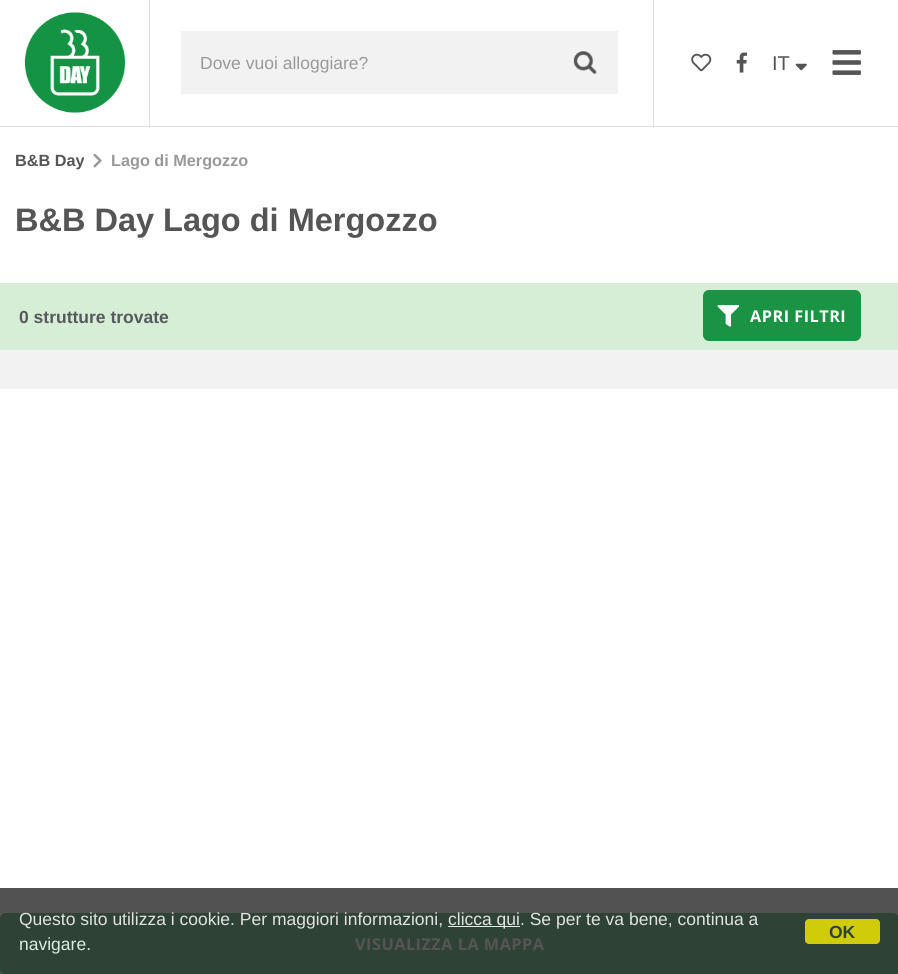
import math
import cairocffi as cairo

surface = cairo.ImageSurface(cairo.FORMAT_RGB24, 898, 974)
cr = cairo.Context(surface)
options = cairo.FontOptions()
options.set_hint_metrics(cairo.HINT_METRICS_OFF)
options.set_hint_style(cairo.HINT_STYLE_NONE)
cr.set_font_options(options)
cr.set_miter_limit(4)


def use_color(code):
    cr.set_source_rgb(*(v / 255 for v in bytes.fromhex(code[-6:])))


def spaced_text(x, y, s, letter, word):
    cr.move_to(x, y)
    for ch in s:
        cr.show_text(ch)
        cr.rel_move_to(letter + word * (ch == ' '), 0)


def round_rect(x, y, w, h, r):
    cr.new_sub_path()
    for i, (u, v) in enumerate([(x + w - r, y + h - r), (x + r, y + h - r), (x + r, y + r), (x + w - r, y + r)]):
        cr.arc(u, v, r, i * math.pi / 2, (i + 1) * math.pi / 2)
    cr.close_path()


def picture(path, x, y, w, h):
    cr.save()
    cr.set_source_surface(cairo.ImageSurface.create_from_png(path), x, y)
    cr.rectangle(x, y, w, h)
    cr.fill()
    cr.restore()


use_color("#ffffff")
cr.paint()
use_color("#525252")
cr.rectangle(0, 888, 898, 86)
cr.fill()
use_color("#dce0e0")
cr.rectangle(0, 126, 898, 1)
cr.fill()
cr.rectangle(149, 0, 1, 128)
cr.fill()
picture("img1.png", 24, 12, 101, 101)
use_color("#f2f2f2")
cr.rectangle(181, 31, 437, 63)
cr.fill()
picture("img2.png", 573, 51, 24, 23)
cr.select_font_face("Liberation Sans")
cr.set_font_size(17.5)
use_color("#999999")
cr.move_to(200, 69)
cr.show_text("Dove vuoi alloggiare?")
use_color("#dce0e0")
cr.rectangle(653, 0, 1, 128)
cr.fill()
picture("img3.png", 691, 53, 21, 19)
picture("img4.png", 736, 52, 12, 21)
cr.set_font_size(20)
use_color("#555555")
cr.move_to(772, 70)
cr.show_text("IT")
picture("img5.png", 795, 63, 12, 8)
picture("img6.png", 832, 50, 29, 25)
use_color("#f2f2f2")
cr.rectangle(0, 350, 898, 39)
cr.fill()
cr.select_font_face("Liberation Sans", cairo.FONT_SLANT_NORMAL, cairo.FONT_WEIGHT_BOLD)
cr.set_font_size(16.25)
use_color("#555555")
cr.move_to(15, 166)
cr.show_text("B&B Day")
picture("img7.png", 93, 153, 9, 15)
use_color("#999999")
cr.move_to(111, 166)
cr.show_text("Lago di Mergozzo")
cr.set_font_size(32.5)
use_color("#555555")
cr.move_to(15, 231)
cr.show_text("B&B Day Lago di Mergozzo")
use_color("#d7eed6")
cr.rectangle(0, 283, 898, 67)
cr.fill()
cr.set_font_size(17.5)
use_color("#565a5c")
cr.move_to(19, 323)
cr.show_text("0 strutture trovate")
use_color("#1a9444")
round_rect(703, 290, 158, 51, 6)
cr.fill()
picture("img8.png", 717, 305, 23, 22)
cr.select_font_face("Open Sans", cairo.FONT_SLANT_NORMAL, cairo.FONT_WEIGHT_BOLD)
cr.set_font_size(16.25)
use_color("#ffffff")
spaced_text(750, 322, "APRI FILTRI", 0.5, 0)
use_color("#2f4236")
round_rect(0, 913, 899, 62, 6)
cr.fill()
cr.select_font_face("Liberation Sans")
cr.set_font_size(17.5)
use_color("#e0e3e1")
cr.move_to(19, 925)
cr.show_text("Questo sito utilizza i cookie. Per maggiori informazioni,")
use_color("#ddefe3")
cr.rectangle(448, 926, 72, 1)
cr.fill()
use_color("#e0e3e1")
cr.move_to(448, 925)
cr.show_text("clicca qui. Se per te va bene, continua a")
use_color("#ddefe3")
cr.move_to(19, 950)
cr.show_text("navigare.")
use_color("#d1cc0a")
round_rect(805, 919, 75, 25, 4)
cr.fill()
cr.select_font_face("Liberation Sans", cairo.FONT_SLANT_NORMAL, cairo.FONT_WEIGHT_BOLD)
use_color("#2f4236")
cr.move_to(829, 938)
cr.show_text("OK")
cr.select_font_face("Open Sans", cairo.FONT_SLANT_NORMAL, cairo.FONT_WEIGHT_BOLD)
cr.set_font_size(16.25)
use_color("#555555")
spaced_text(355, 950, "VISUALIZZA LA MAPPA", 0.5, 0)
surface.write_to_png("result.png")
